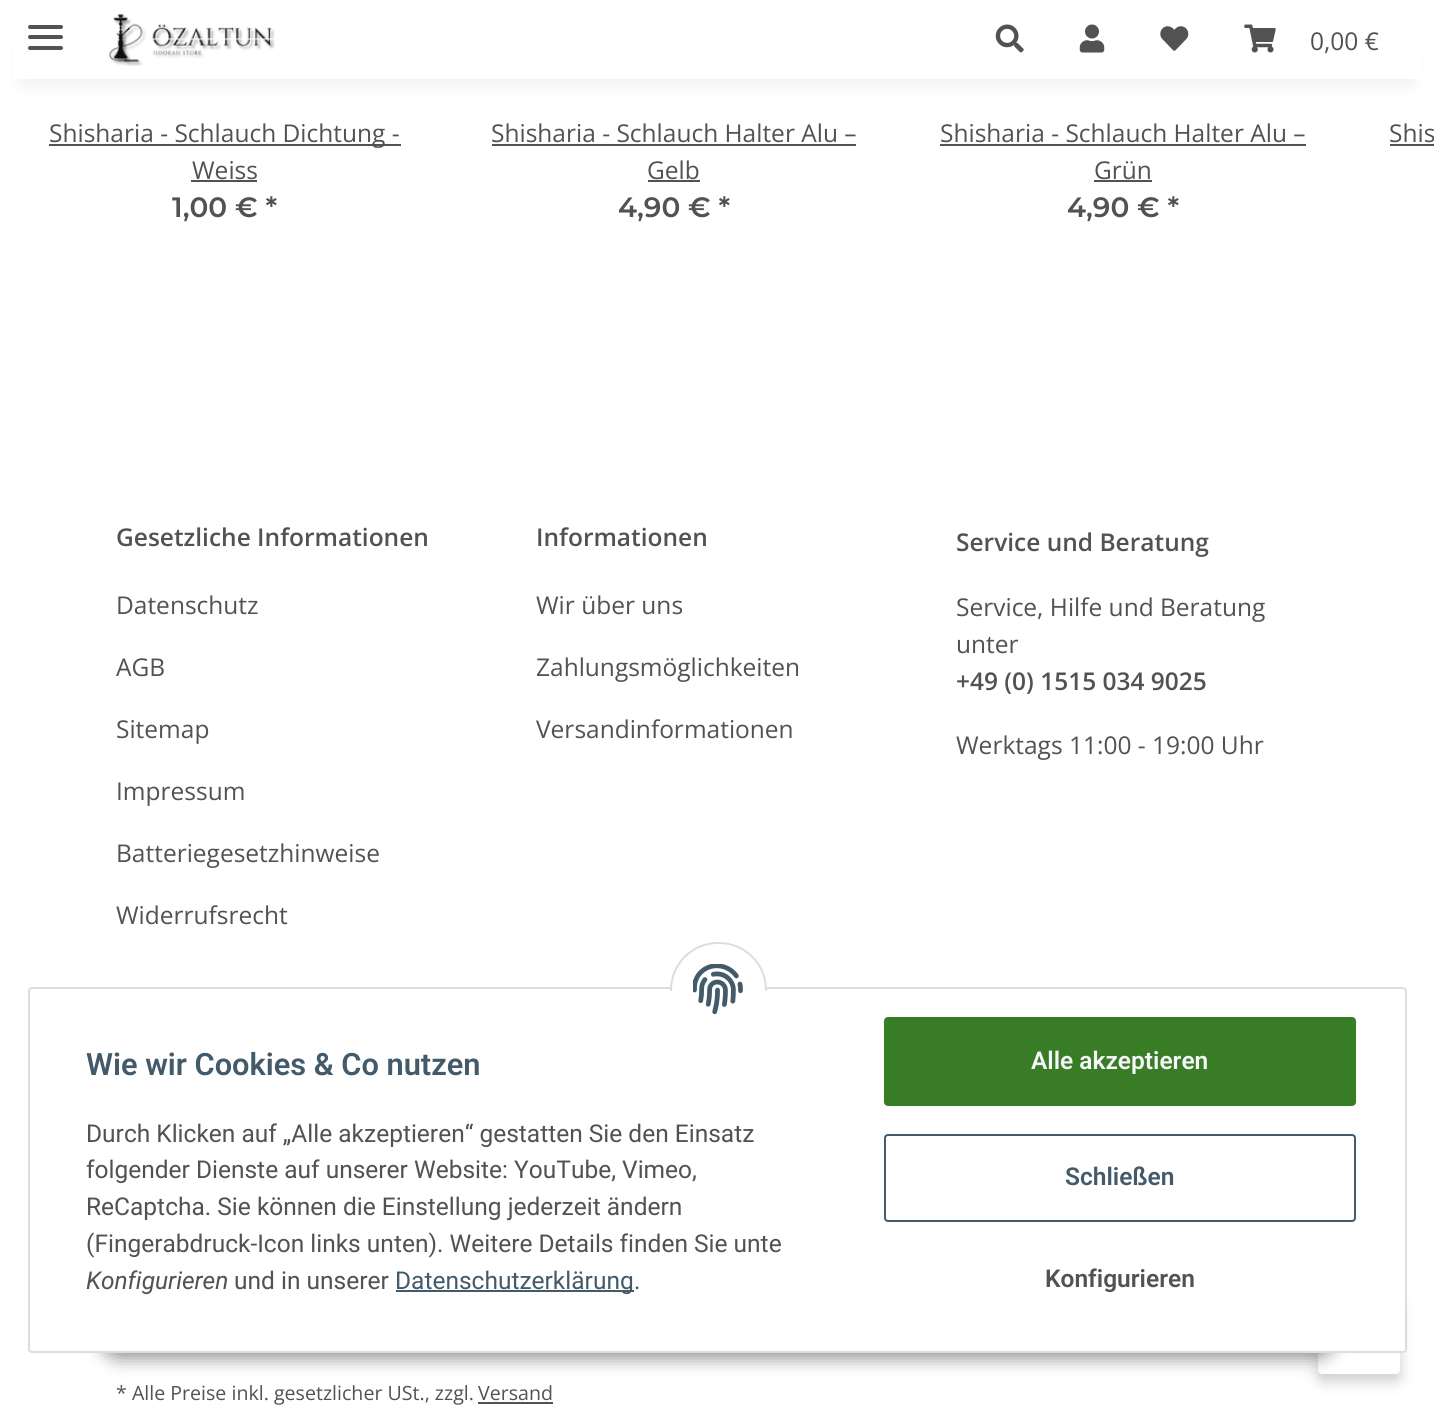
import math
import cairocffi as cairo

surface = cairo.ImageSurface(cairo.FORMAT_RGB24, 1434, 1408)
cr = cairo.Context(surface)
options = cairo.FontOptions()
options.set_hint_metrics(cairo.HINT_METRICS_OFF)
options.set_hint_style(cairo.HINT_STYLE_NONE)
cr.set_font_options(options)
cr.set_miter_limit(4)


def use_color(code):
    cr.set_source_rgb(*(v / 255 for v in bytes.fromhex(code[-6:])))


def round_rect(x, y, w, h, r):
    cr.new_sub_path()
    for i, (u, v) in enumerate([(x + w - r, y + h - r), (x + r, y + h - r), (x + r, y + r), (x + w - r, y + r)]):
        cr.arc(u, v, r, i * math.pi / 2, (i + 1) * math.pi / 2)
    cr.close_path()


def shadow(x, y, w, h, r, blur, alpha):
    cr.push_group_with_content(cairo.CONTENT_ALPHA)
    cr.set_operator(cairo.OPERATOR_SOURCE)
    for i in range(15, -16, -2):
        e = blur * i / 6
        if min(w, h) + 2 * e > 0:
            cr.set_source_rgba(0, 0, 0, alpha * math.erfc((i - 1) / 8.5) / 2)
            round_rect(x - e, y - e, w + 2 * e, h + 2 * e, max(0, min(r + e + blur * .6, min(w, h) / 2 + e)))
            cr.fill()
    cr.mask(cr.pop_group())


def picture(path, x, y, w, h):
    cr.save()
    cr.set_source_surface(cairo.ImageSurface.create_from_png(path), x, y)
    cr.rectangle(x, y, w, h)
    cr.fill()
    cr.restore()


use_color("#ffffff")
cr.paint()
use_color("#000000")
shadow(21, 49, 1393, 37, 0, 8, 0.06)
use_color("#ffffff")
cr.rectangle(13, 41, 1409, 38)
cr.fill()
use_color("#525252")
round_rect(28, 35, 35, 4, 2)
cr.fill()
round_rect(28, 25, 35, 4, 2)
cr.fill()
round_rect(28, 46, 35, 4, 2)
cr.fill()
picture("img1.png", 108, 14, 167, 52)
picture("img2.png", 995, 24, 29, 29)
picture("img3.png", 1079, 24, 26, 29)
picture("img4.png", 1160, 26, 29, 25)
picture("img5.png", 1244, 24, 32, 29)
cr.select_font_face("Open Sans")
cr.set_font_size(24.5)
cr.move_to(1310, 50)
cr.show_text("0,00 €")
cr.rectangle(49, 144, 352, 2)
cr.fill()
cr.move_to(49, 142)
cr.show_text("Shisharia - Schlauch Dichtung -")
cr.move_to(192, 179)
cr.show_text("Weiss")
cr.rectangle(191, 180, 66, 2)
cr.fill()
cr.select_font_face("Montserrat SemiBold")
cr.set_font_size(28)
cr.move_to(172, 217)
cr.show_text("1,00 € *")
cr.select_font_face("Open Sans")
cr.set_font_size(24.5)
cr.move_to(491, 142)
cr.show_text("Shisharia - Schlauch Halter Alu –")
cr.rectangle(492, 144, 364, 2)
cr.fill()
cr.move_to(647, 179)
cr.show_text("Gelb")
cr.rectangle(648, 180, 52, 2)
cr.fill()
cr.select_font_face("Montserrat SemiBold")
cr.set_font_size(28)
cr.move_to(618, 217)
cr.show_text("4,90 € *")
cr.select_font_face("Open Sans")
cr.set_font_size(24.5)
cr.move_to(940, 142)
cr.show_text("Shisharia - Schlauch Halter Alu –")
cr.rectangle(940, 144, 366, 2)
cr.fill()
cr.move_to(1094, 179)
cr.show_text("Grün")
cr.rectangle(1094, 180, 58, 2)
cr.fill()
cr.select_font_face("Montserrat SemiBold")
cr.set_font_size(28)
cr.move_to(1067, 217)
cr.show_text("4,90 € *")
cr.select_font_face("Open Sans")
cr.set_font_size(24.5)
cr.move_to(1389, 142)
cr.show_text("Shis")
cr.rectangle(1390, 144, 44, 2)
cr.fill()
cr.select_font_face("Open Sans SemiBold")
cr.move_to(116, 546)
cr.show_text("Gesetzliche Informationen")
cr.select_font_face("Open Sans")
cr.move_to(116, 614)
cr.show_text("Datenschutz")
cr.move_to(116, 676)
cr.show_text("AGB")
cr.move_to(116, 738)
cr.show_text("Sitemap")
cr.move_to(116, 800)
cr.show_text("Impressum")
cr.move_to(116, 862)
cr.show_text("Batteriegesetzhinweise")
cr.move_to(116, 924)
cr.show_text("Widerrufsrecht")
cr.select_font_face("Open Sans SemiBold")
cr.move_to(536, 546)
cr.show_text("Informationen")
cr.select_font_face("Open Sans")
cr.move_to(536, 614)
cr.show_text("Wir über uns")
cr.move_to(536, 676)
cr.show_text("Zahlungsmöglichkeiten")
cr.move_to(536, 738)
cr.show_text("Versandinformationen")
cr.select_font_face("Open Sans SemiBold")
cr.move_to(956, 551)
cr.show_text("Service und Beratung")
cr.select_font_face("Open Sans")
cr.move_to(956, 616)
cr.show_text("Service, Hilfe und Beratung")
cr.move_to(956, 653)
cr.show_text("unter")
cr.select_font_face("Open Sans SemiBold")
cr.move_to(956, 690)
cr.show_text("+49 (0) 1515 034 9025")
cr.select_font_face("Open Sans")
cr.move_to(956, 754)
cr.show_text("Werktags 11:00 - 19:00 Uhr")
cr.set_font_size(19.6)
cr.move_to(116, 1400)
cr.show_text("* Alle Preise inkl. gesetzlicher USt., zzgl.")
cr.move_to(478, 1400)
cr.show_text("Versand")
cr.rectangle(478, 1402, 75, 2)
cr.fill()
use_color("#000000")
shadow(1318, 1304, 82, 77, 4, 7, 0.2)
use_color("#ffffff")
round_rect(1318, 1297, 82, 77, 4)
cr.fill()
use_color("#000000")
shadow(98, 1302, 1239, 56, 28, 9, 0.45)
use_color("#ffffff")
round_rect(29, 988, 1377, 364, 3)
cr.fill_preserve()
use_color("#dddddd")
cr.stroke()
use_color("#ffffff")
round_rect(671, 943, 95, 94, 47)
cr.fill_preserve()
use_color("#dddddd")
cr.stroke()
use_color("#ffffff")
cr.rectangle(670, 991, 97, 47)
cr.fill()
picture("img6.png", 693, 964, 50, 51)
cr.select_font_face("Roboto SemiBold")
cr.set_font_size(30.75)
use_color("#435a6b")
cr.move_to(86, 1075)
cr.show_text("Wie wir Cookies & Co nutzen")
cr.select_font_face("Roboto")
cr.set_font_size(24.5)
use_color("#525252")
cr.move_to(86, 1142)
cr.show_text("Durch Klicken auf „Alle akzeptieren“ gestatten Sie den Einsatz")
cr.move_to(86, 1178)
cr.show_text("folgender Dienste auf unserer Website: YouTube, Vimeo,")
cr.move_to(86, 1215)
cr.show_text("ReCaptcha. Sie können die Einstellung jederzeit ändern")
cr.move_to(86, 1252)
cr.show_text("(Fingerabdruck-Icon links unten). Weitere Details finden Sie unte")
cr.select_font_face("Roboto", cairo.FONT_SLANT_ITALIC)
cr.move_to(86, 1289)
cr.show_text("Konfigurieren")
cr.select_font_face("Roboto")
cr.move_to(234, 1289)
cr.show_text("und in unserer")
use_color("#435a6b")
cr.rectangle(396, 1290, 238, 2)
cr.fill()
cr.move_to(395, 1289)
cr.show_text("Datenschutzerklärung")
use_color("#525252")
cr.move_to(634, 1289)
cr.show_text(".")
use_color("#397c26")
round_rect(885, 1018, 470, 87, 3)
cr.fill_preserve()
cr.stroke()
cr.select_font_face("Roboto SemiBold")
use_color("#f5f7fa")
cr.move_to(1031, 1069)
cr.show_text("Alle akzeptieren")
round_rect(885, 1135, 470, 86, 3)
use_color("#435a6b")
cr.stroke()
cr.move_to(1065, 1185)
cr.show_text("Schließen")
use_color("#525252")
cr.move_to(1045, 1287)
cr.show_text("Konfigurieren")
surface.write_to_png("result.png")
